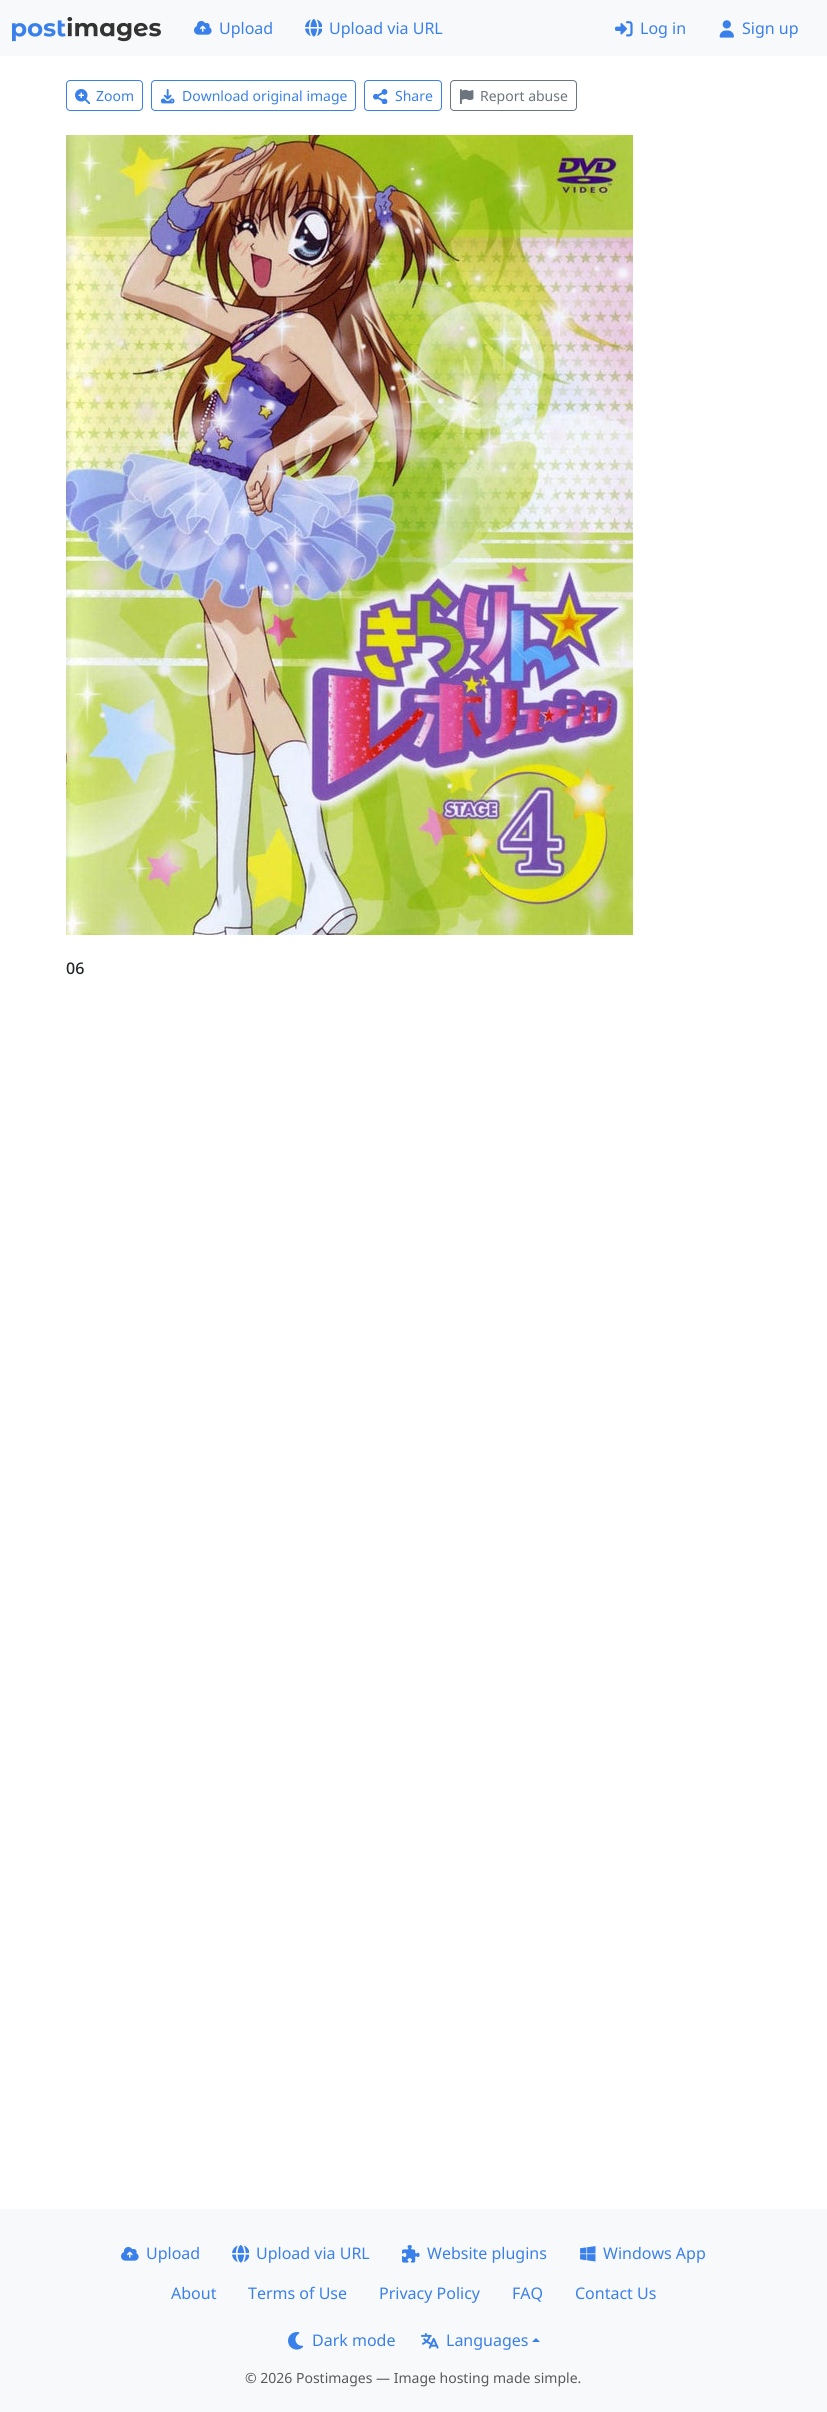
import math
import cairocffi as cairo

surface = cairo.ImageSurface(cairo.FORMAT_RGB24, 827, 2412)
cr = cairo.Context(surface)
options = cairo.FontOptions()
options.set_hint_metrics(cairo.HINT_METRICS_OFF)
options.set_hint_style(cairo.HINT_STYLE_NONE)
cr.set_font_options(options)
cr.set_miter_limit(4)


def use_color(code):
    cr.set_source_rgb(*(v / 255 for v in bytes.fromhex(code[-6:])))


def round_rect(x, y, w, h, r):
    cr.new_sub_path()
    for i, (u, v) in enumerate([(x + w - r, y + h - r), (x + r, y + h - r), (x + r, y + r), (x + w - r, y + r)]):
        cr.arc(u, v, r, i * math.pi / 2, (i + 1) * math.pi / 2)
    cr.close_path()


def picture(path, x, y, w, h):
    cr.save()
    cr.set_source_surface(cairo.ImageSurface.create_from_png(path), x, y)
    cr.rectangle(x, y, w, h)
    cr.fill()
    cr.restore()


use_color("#ffffff")
cr.paint()
use_color("#f8f9fa")
cr.rectangle(0, 0, 827, 56)
cr.fill()
picture("img1.png", 12, 17, 149, 25)
picture("img2.png", 194, 21, 18, 14)
cr.select_font_face("Noto Sans")
cr.set_font_size(16)
use_color("#3a80ea")
cr.move_to(219, 34)
cr.show_text("Upload")
picture("img3.png", 305, 19, 17, 18)
cr.move_to(329, 34)
cr.show_text("Upload via URL")
picture("img4.png", 615, 21, 18, 16)
cr.move_to(640, 34)
cr.show_text("Log in")
picture("img5.png", 719, 20, 15, 18)
cr.move_to(742, 34)
cr.show_text("Sign up")
round_rect(66.5, 80.5, 76, 30, 3.5)
cr.set_line_width(1)
cr.stroke()
picture("img6.png", 75, 89, 15, 15)
cr.set_font_size(14)
cr.move_to(96, 101)
cr.show_text("Zoom")
round_rect(151.5, 80.5, 204, 30, 3.5)
cr.stroke()
picture("img7.png", 160, 89, 15, 15)
cr.move_to(182, 101)
cr.show_text("Download original image")
round_rect(364.5, 80.5, 77, 30, 3.5)
cr.stroke()
picture("img8.png", 373, 89, 15, 15)
cr.move_to(395, 101)
cr.show_text("Share")
round_rect(450.5, 80.5, 126, 30, 3.5)
use_color("#6c757d")
cr.stroke()
picture("img9.png", 459, 89, 15, 15)
cr.move_to(480, 101)
cr.show_text("Report abuse")
picture("img10.png", 66, 135, 567, 800)
cr.select_font_face("Noto Sans Medium")
cr.set_font_size(16)
use_color("#212529")
cr.move_to(66, 974)
cr.show_text("06")
use_color("#f8f9fa")
cr.rectangle(0, 2209, 827, 203)
cr.fill()
picture("img2.png", 121, 2247, 18, 14)
cr.select_font_face("Noto Sans")
use_color("#3a80ea")
cr.move_to(146, 2259)
cr.show_text("Upload")
picture("img3.png", 232, 2245, 17, 18)
cr.move_to(256, 2259)
cr.show_text("Upload via URL")
picture("img11.png", 402, 2245, 18, 18)
cr.move_to(427, 2259)
cr.show_text("Website plugins")
picture("img12.png", 580, 2246, 16, 16)
cr.move_to(603, 2259)
cr.show_text("Windows App")
cr.move_to(171, 2299)
cr.show_text("About")
cr.move_to(248, 2299)
cr.show_text("Terms of Use")
cr.move_to(379, 2299)
cr.show_text("Privacy Policy")
cr.move_to(512, 2299)
cr.show_text("FAQ")
cr.move_to(575, 2299)
cr.show_text("Contact Us")
picture("img13.png", 288, 2332, 16, 18)
cr.move_to(312, 2346)
cr.show_text("Dark mode")
picture("img14.png", 421, 2333, 18, 16)
cr.move_to(446, 2346)
cr.show_text("Languages")
cr.new_path()
cr.move_to(540, 2342)
cr.line_to(532, 2342)
cr.line_to(536, 2338)
cr.close_path()
cr.fill()
cr.set_font_size(14)
use_color("#575a5d")
cr.move_to(245, 2383)
cr.show_text("© 2026 Postimages — Image hosting made simple.")
surface.write_to_png("result.png")
